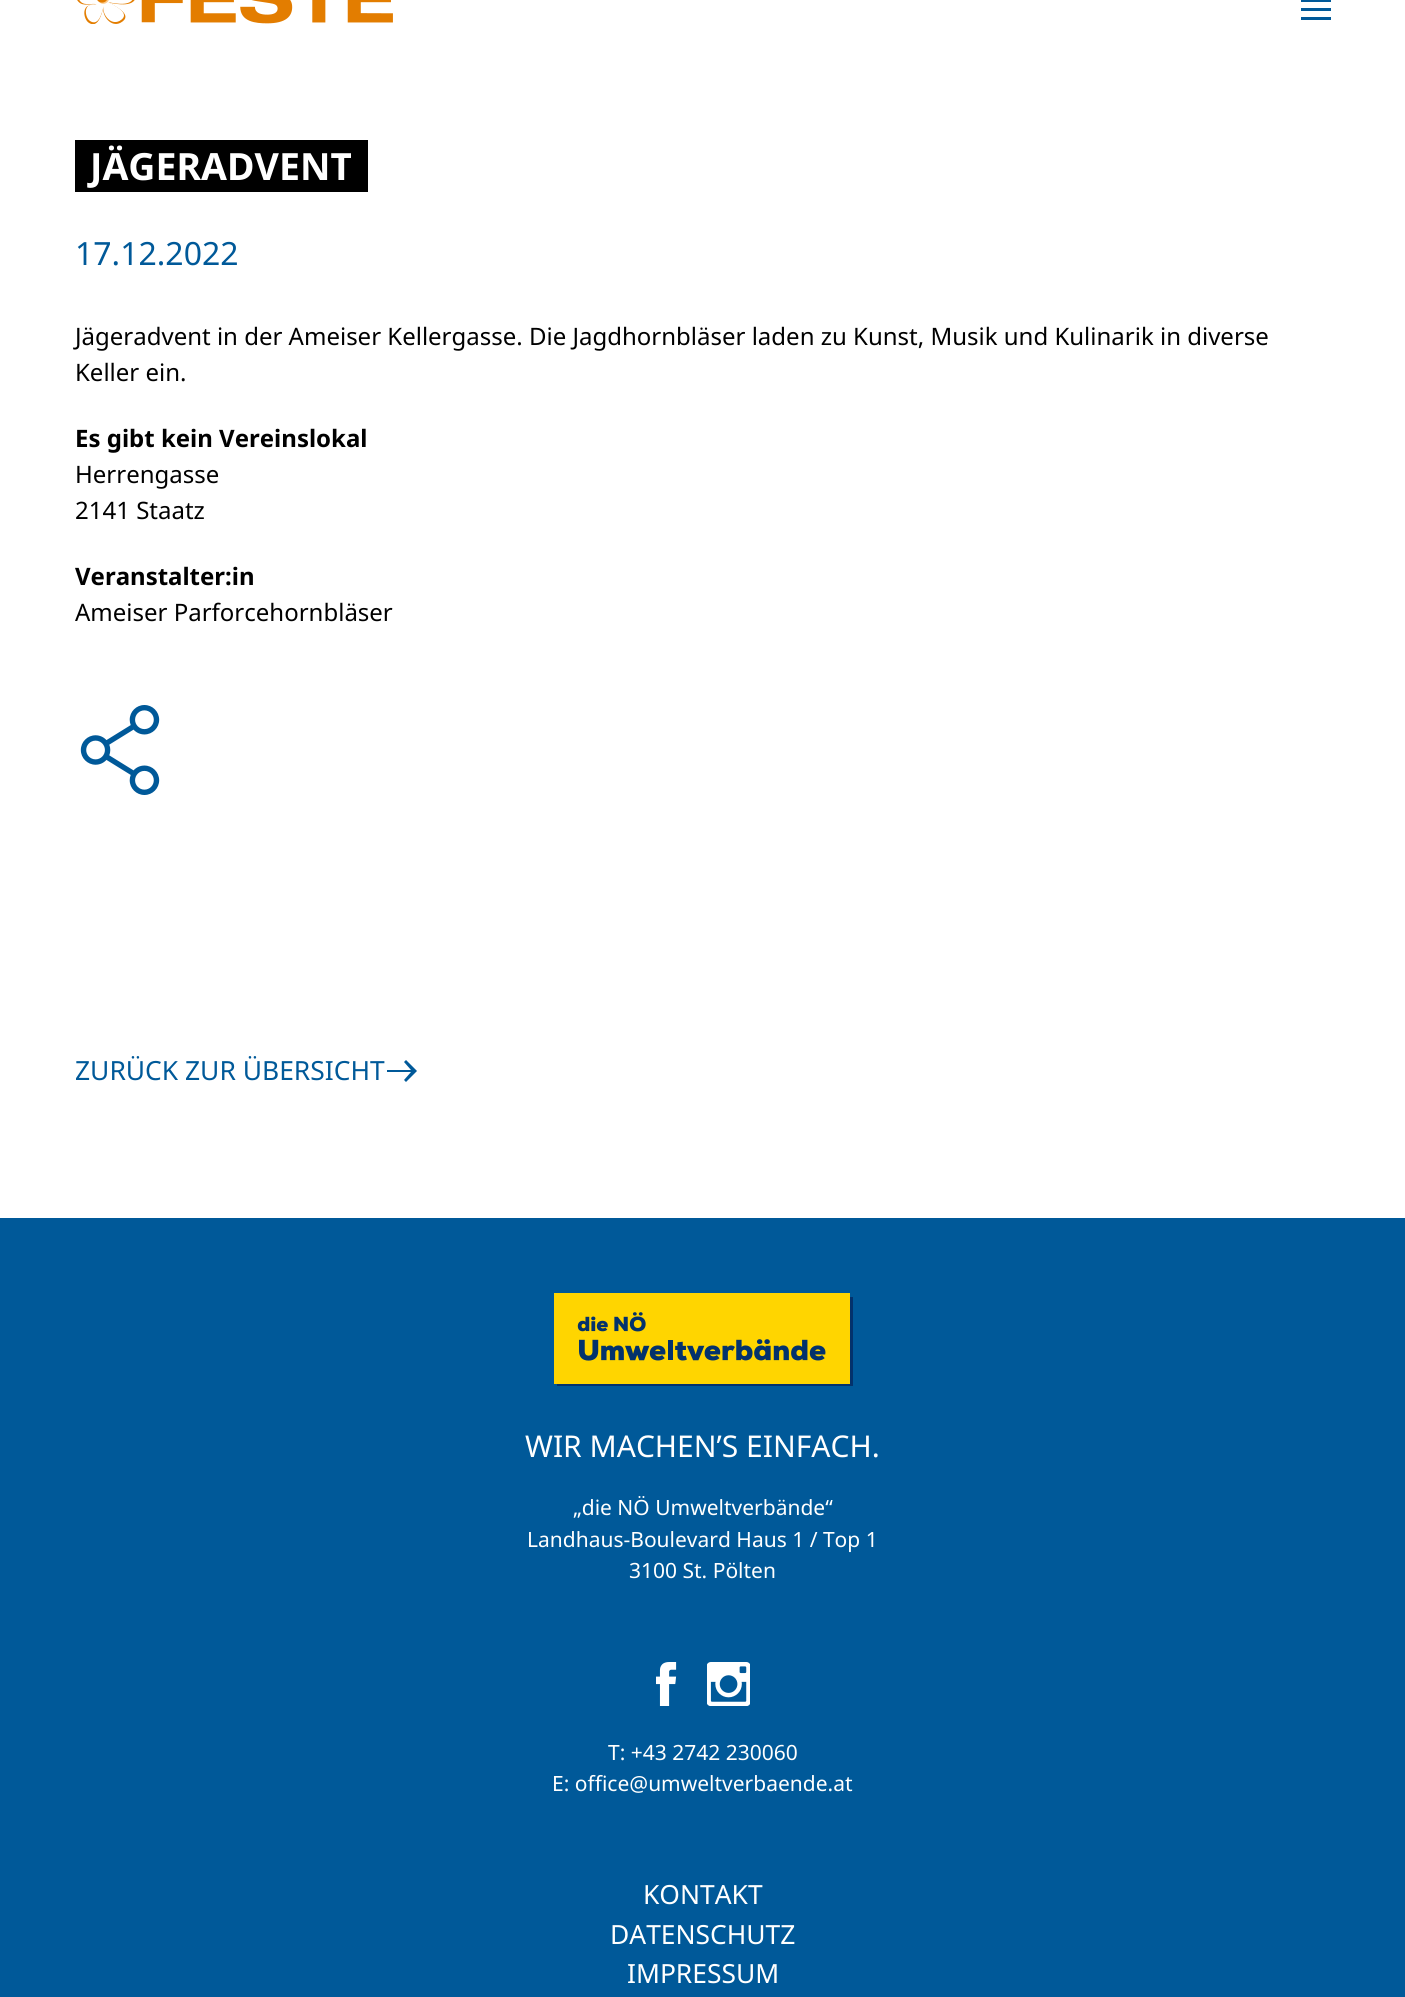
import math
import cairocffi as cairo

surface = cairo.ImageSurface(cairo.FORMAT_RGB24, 1405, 1997)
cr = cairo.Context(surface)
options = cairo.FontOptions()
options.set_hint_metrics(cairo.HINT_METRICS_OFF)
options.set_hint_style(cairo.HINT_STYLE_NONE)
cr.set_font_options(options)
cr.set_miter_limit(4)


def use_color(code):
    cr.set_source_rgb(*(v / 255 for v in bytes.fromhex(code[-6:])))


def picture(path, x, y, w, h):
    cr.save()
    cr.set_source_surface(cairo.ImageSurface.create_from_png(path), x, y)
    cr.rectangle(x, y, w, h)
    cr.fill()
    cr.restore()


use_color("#ffffff")
cr.paint()
picture("img1.png", 77, 0, 316, 24)
use_color("#005999")
cr.rectangle(1301, 0, 30, 2)
cr.fill()
cr.rectangle(1301, 8, 30, 3)
cr.fill()
cr.rectangle(1301, 17, 30, 3)
cr.fill()
use_color("#000000")
cr.new_path()
cr.move_to(105, 190)
cr.line_to(105, 192)
cr.line_to(368, 192)
cr.line_to(368, 141)
cr.line_to(352, 141)
cr.line_to(352, 190)
cr.close_path()
cr.fill()
cr.new_path()
cr.move_to(75, 141)
cr.line_to(75, 192)
cr.line_to(338, 192)
cr.line_to(338, 190)
cr.line_to(90, 190)
cr.line_to(90, 141)
cr.close_path()
cr.fill()
cr.new_path()
cr.move_to(105, 190)
cr.line_to(105, 191)
cr.line_to(368, 191)
cr.line_to(368, 140)
cr.line_to(352, 140)
cr.line_to(352, 190)
cr.close_path()
cr.fill()
cr.new_path()
cr.move_to(75, 140)
cr.line_to(75, 191)
cr.line_to(338, 191)
cr.line_to(338, 190)
cr.line_to(90, 190)
cr.line_to(90, 140)
cr.close_path()
cr.fill()
cr.rectangle(90, 140, 262, 50)
cr.fill()
cr.select_font_face("Noto Sans", cairo.FONT_SLANT_NORMAL, cairo.FONT_WEIGHT_BOLD)
cr.set_font_size(37.5)
use_color("#ffffff")
cr.move_to(90, 180)
cr.show_text("JÄGERADVENT")
cr.select_font_face("Noto Sans")
cr.set_font_size(32)
use_color("#005999")
cr.move_to(75, 265)
cr.show_text("17.12.2022")
cr.set_font_size(24)
use_color("#000000")
cr.move_to(75, 345)
cr.show_text("Jägeradvent in der Ameiser Kellergasse. Die Jagdhornbläser laden zu Kunst, Musik und Kulinarik in diverse")
cr.move_to(75, 381)
cr.show_text("Keller ein.")
cr.select_font_face("Noto Sans", cairo.FONT_SLANT_NORMAL, cairo.FONT_WEIGHT_BOLD)
cr.move_to(75, 447)
cr.show_text("Es gibt kein Vereinslokal")
cr.select_font_face("Noto Sans")
cr.move_to(75, 483)
cr.show_text("Herrengasse")
cr.move_to(75, 519)
cr.show_text("2141 Staatz")
cr.select_font_face("Noto Sans", cairo.FONT_SLANT_NORMAL, cairo.FONT_WEIGHT_BOLD)
cr.move_to(75, 585)
cr.show_text("Veranstalter:in")
cr.select_font_face("Noto Sans")
cr.move_to(75, 621)
cr.show_text("Ameiser Parforcehornbläser")
picture("img2.png", 80, 705, 80, 90)
cr.set_font_size(26.4)
use_color("#005999")
cr.move_to(75, 1080)
cr.show_text("ZURÜCK ZUR ÜBERSICHT")
cr.save()
cr.rectangle(387, 1059, 30, 23)
cr.clip()
cr.new_path()
cr.move_to(406, 1060)
cr.line_to(404, 1062)
cr.line_to(411, 1070)
cr.line_to(376, 1070)
cr.line_to(376, 1072)
cr.line_to(411, 1072)
cr.line_to(404, 1080)
cr.line_to(406, 1082)
cr.line_to(417, 1071)
cr.close_path()
cr.fill()
cr.restore()
cr.rectangle(0, 1218, 1405, 779)
cr.fill()
picture("img3.png", 554, 1293, 299, 93)
cr.set_font_size(30)
use_color("#ffffff")
cr.move_to(525, 1457)
cr.show_text("WIR MACHEN’S EINFACH.")
cr.set_font_size(21)
cr.move_to(573, 1515)
cr.show_text("„die NÖ Umweltverbände“")
cr.move_to(527, 1547)
cr.show_text("Landhaus-Boulevard Haus 1 / Top 1")
cr.move_to(629, 1578)
cr.show_text("3100 St. Pölten")
picture("img4.png", 656, 1662, 21, 44)
picture("img5.png", 707, 1662, 43, 44)
cr.move_to(608, 1760)
cr.show_text("T: +43 2742 230060")
cr.move_to(552, 1791)
cr.show_text("E: office@umweltverbaende.at")
cr.set_font_size(26.4)
cr.move_to(643, 1904)
cr.show_text("KONTAKT")
cr.move_to(610, 1944)
cr.show_text("DATENSCHUTZ")
cr.move_to(627, 1983)
cr.show_text("IMPRESSUM")
surface.write_to_png("result.png")
